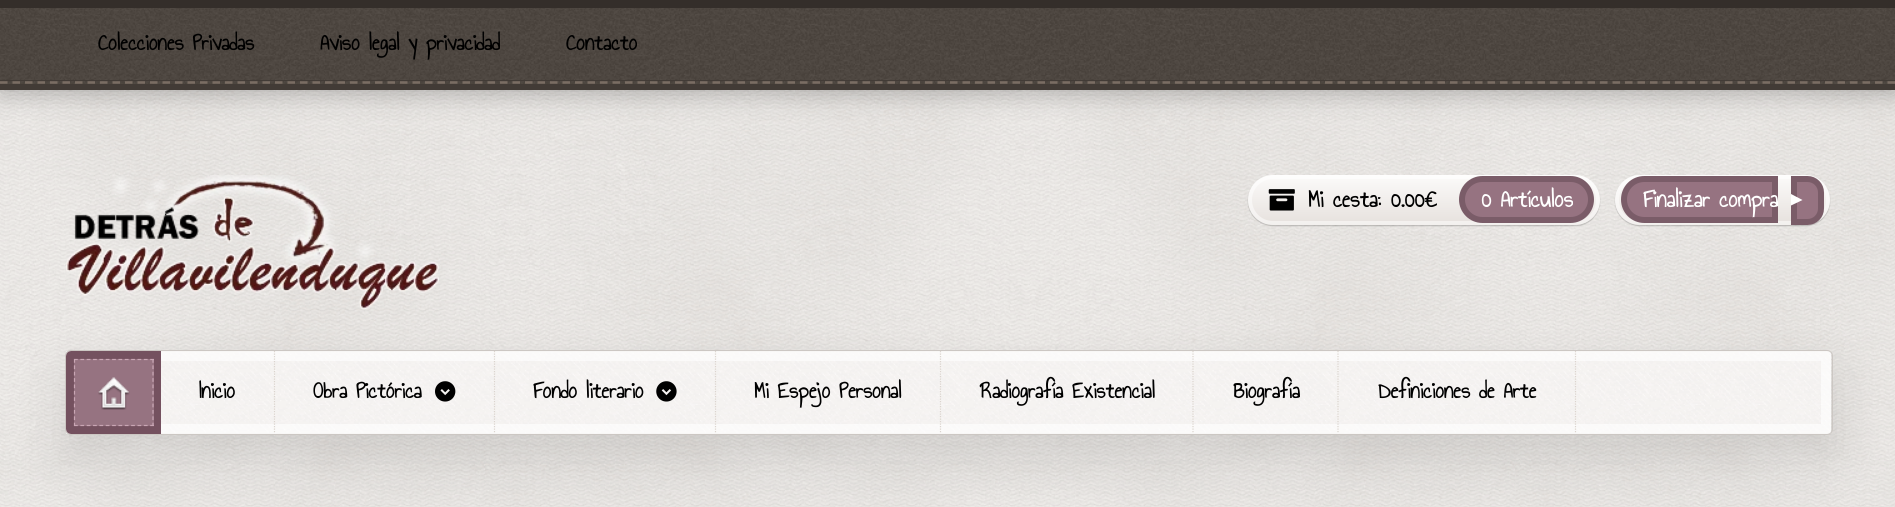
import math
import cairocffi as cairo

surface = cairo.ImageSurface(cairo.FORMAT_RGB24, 1895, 507)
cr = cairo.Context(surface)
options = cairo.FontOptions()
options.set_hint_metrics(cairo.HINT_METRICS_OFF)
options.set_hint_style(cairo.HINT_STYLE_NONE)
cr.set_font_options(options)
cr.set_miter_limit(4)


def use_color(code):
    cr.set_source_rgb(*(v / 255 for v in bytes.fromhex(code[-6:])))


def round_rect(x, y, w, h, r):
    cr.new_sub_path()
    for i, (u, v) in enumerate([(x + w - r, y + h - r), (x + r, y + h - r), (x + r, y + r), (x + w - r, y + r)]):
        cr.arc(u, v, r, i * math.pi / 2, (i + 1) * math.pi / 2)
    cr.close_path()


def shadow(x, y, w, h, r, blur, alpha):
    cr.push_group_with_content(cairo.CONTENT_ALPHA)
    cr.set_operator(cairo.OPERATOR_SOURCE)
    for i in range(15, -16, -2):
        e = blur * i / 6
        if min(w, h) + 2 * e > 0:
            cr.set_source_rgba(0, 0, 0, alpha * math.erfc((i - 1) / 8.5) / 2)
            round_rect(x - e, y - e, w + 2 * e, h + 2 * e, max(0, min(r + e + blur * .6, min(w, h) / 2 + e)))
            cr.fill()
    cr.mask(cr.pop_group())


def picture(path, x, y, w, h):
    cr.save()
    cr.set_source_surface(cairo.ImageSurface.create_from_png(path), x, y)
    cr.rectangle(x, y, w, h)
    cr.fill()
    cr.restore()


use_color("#ffffff")
cr.paint()
picture("img1.png", 0, 90, 1895, 417)
picture("img2.png", 0, 90, 1895, 417)
use_color("#000000")
shadow(0, 10, 1895, 84, 0, 12.5, 0.25)
use_color("#423b36")
cr.rectangle(0, 84, 1895, 6)
cr.fill()
use_color("#504841")
cr.rectangle(0, 8, 1895, 76)
cr.fill()
picture("img3.png", 0, 8, 1895, 76)
use_color("#423b36")
cr.rectangle(0, 80, 1895, 1)
cr.fill()
use_color("#342e2a")
cr.rectangle(0, 0, 1895, 8)
cr.fill()
cr.new_path()
cr.move_to(0, 82.5)
cr.line_to(1895, 82.5)
use_color("#7a6d63")
cr.set_line_width(2.5)
cr.set_dash([7.5, 5])
cr.stroke()
cr.select_font_face("Annie Use Your Telescope", cairo.FONT_SLANT_NORMAL, cairo.FONT_WEIGHT_BOLD)
cr.set_font_size(23.75)
use_color("#000000")
cr.move_to(98, 50)
cr.show_text("Colecciones Privadas")
cr.move_to(320, 50)
cr.show_text("Aviso legal y privacidad")
cr.move_to(566, 50)
cr.show_text("Contacto")
use_color("#000000")
shadow(65, 375, 1768, 85, 6, 25, 0.1)
picture("img4.png", 66, 175, 373, 135)
shadow(1248, 176, 352, 50, 25, 0.5, 0.2)
gradient = cairo.LinearGradient(1424, 175, 1424, 225)
gradient.add_color_stop_rgba(0, 0.988, 0.984, 0.98, 1)
gradient.add_color_stop_rgba(1, 0.902, 0.882, 0.867, 1)
cr.set_source(gradient)
round_rect(1248, 175, 352, 50, 25)
cr.fill()
round_rect(1250, 177, 348, 46, 23)
cr.set_source_rgba(1, 1, 1, 0.5)
cr.set_line_width(4)
cr.set_dash([])
cr.stroke()
picture("img5.png", 1268, 189, 27, 22)
cr.set_font_size(25)
use_color("#000000")
cr.move_to(1308, 207)
cr.show_text("Mi cesta: 0.00€")
use_color("#967381")
round_rect(1462, 179, 129, 41, 20.5)
cr.fill_preserve()
use_color("#7a5c68")
cr.set_line_width(6)
cr.stroke()
use_color("#ffffff")
cr.move_to(1481, 207)
cr.show_text("0 Artículos")
use_color("#000000")
shadow(1615, 176, 215, 50, 25, 0.5, 0.2)
gradient = cairo.LinearGradient(1723, 175, 1723, 225)
gradient.add_color_stop_rgba(0, 0.988, 0.984, 0.98, 1)
gradient.add_color_stop_rgba(1, 0.902, 0.882, 0.867, 1)
cr.set_source(gradient)
round_rect(1615, 175, 215, 50, 25)
cr.fill()
round_rect(1617, 177, 211, 46, 23)
cr.set_source_rgba(1, 1, 1, 0.5)
cr.set_line_width(4)
cr.stroke()
use_color("#967381")
cr.new_path()
cr.move_to(1644.5, 179)
cr.line_to(1775, 179)
cr.line_to(1775, 220)
cr.line_to(1644.5, 220)
cr.curve_to(1633, 220, 1624, 211, 1624, 199.5)
cr.curve_to(1624, 188, 1633, 179, 1644.5, 179)
cr.close_path()
cr.fill_preserve()
use_color("#7a5c68")
cr.set_line_width(6)
cr.stroke()
use_color("#967381")
cr.new_path()
cr.move_to(1794, 179)
cr.line_to(1807.5, 179)
cr.curve_to(1815, 179, 1821, 185, 1821, 192.5)
cr.line_to(1821, 208.5)
cr.curve_to(1821, 216, 1815, 222, 1807.5, 222)
cr.line_to(1794, 222)
cr.close_path()
cr.fill_preserve()
use_color("#7a5c68")
cr.stroke()
use_color("#ffffff")
cr.move_to(1643, 207)
cr.show_text("Finalizar compra")
cr.new_path()
cr.move_to(1802.5, 200)
cr.line_to(1791, 205.5)
cr.line_to(1791, 194)
cr.close_path()
cr.fill()
use_color("#e6e1dd")
round_rect(66, 351, 1765, 83, 5)
cr.fill()
picture("img6.png", 66, 351, 1765, 83)
cr.rectangle(71, 356, 1755, 73)
cr.set_source_rgba(1, 1, 1, 0.6)
cr.set_line_width(10)
cr.stroke()
round_rect(65.5, 350.5, 1767, 84, 5.5)
use_color("#ccc7c3")
cr.set_line_width(1)
cr.stroke()
cr.new_path()
cr.move_to(71, 355)
cr.line_to(157, 355)
cr.line_to(157, 430)
cr.line_to(71, 430)
cr.curve_to(70.5, 430, 70, 429.5, 70, 429)
cr.line_to(70, 356)
cr.curve_to(70, 355.5, 70.5, 355, 71, 355)
cr.close_path()
use_color("#74515f")
cr.set_line_width(8)
cr.stroke()
use_color("#967381")
cr.rectangle(74, 359, 80, 67)
cr.fill()
picture("img7.png", 98, 377, 32, 33)
cr.new_path()
cr.move_to(74, 359.5)
cr.line_to(154, 359.5)
use_color("#c9a6b4")
cr.set_line_width(1.2)
cr.set_dash([3.75, 2.6])
cr.stroke()
cr.new_path()
cr.move_to(153, 359)
cr.line_to(153, 426)
cr.set_dash([3.75, 2.62])
cr.stroke()
cr.new_path()
cr.move_to(74, 425.5)
cr.line_to(154, 425.5)
cr.set_dash([3.75, 2.6])
cr.stroke()
cr.new_path()
cr.move_to(74.5, 359)
cr.line_to(74.5, 426)
cr.set_dash([3.75, 2.62])
cr.stroke()
cr.new_path()
cr.move_to(274.5, 351)
cr.line_to(274.5, 432.5)
use_color("#dbd4ce")
cr.set_dash([1.25, 1.25])
cr.stroke()
cr.set_font_size(23.75)
use_color("#000000")
cr.move_to(199, 398)
cr.show_text("Inicio")
cr.new_path()
cr.move_to(494.5, 351)
cr.line_to(494.5, 432.5)
use_color("#dbd4ce")
cr.stroke()
use_color("#000000")
cr.move_to(313, 398)
cr.show_text("Obra Pictórica")
picture("img8.png", 435, 381, 21, 21)
cr.new_path()
cr.move_to(715.5, 351)
cr.line_to(715.5, 432.5)
use_color("#dbd4ce")
cr.stroke()
use_color("#000000")
cr.move_to(533, 398)
cr.show_text("Fondo literario")
picture("img9.png", 656, 381, 21, 21)
cr.new_path()
cr.move_to(940.5, 351)
cr.line_to(940.5, 432.5)
use_color("#dbd4ce")
cr.stroke()
use_color("#000000")
cr.move_to(754, 398)
cr.show_text("Mi Espejo Personal")
cr.new_path()
cr.move_to(1193, 351)
cr.line_to(1193, 432.5)
use_color("#dbd4ce")
cr.stroke()
use_color("#000000")
cr.move_to(980, 398)
cr.show_text("Radiografía Existencial")
cr.new_path()
cr.move_to(1338, 351)
cr.line_to(1338, 432.5)
use_color("#dbd4ce")
cr.stroke()
use_color("#000000")
cr.move_to(1233, 398)
cr.show_text("Biografía")
cr.new_path()
cr.move_to(1575.5, 351)
cr.line_to(1575.5, 432.5)
use_color("#dbd4ce")
cr.stroke()
use_color("#000000")
cr.move_to(1378, 398)
cr.show_text("Definiciones de Arte")
surface.write_to_png("result.png")
